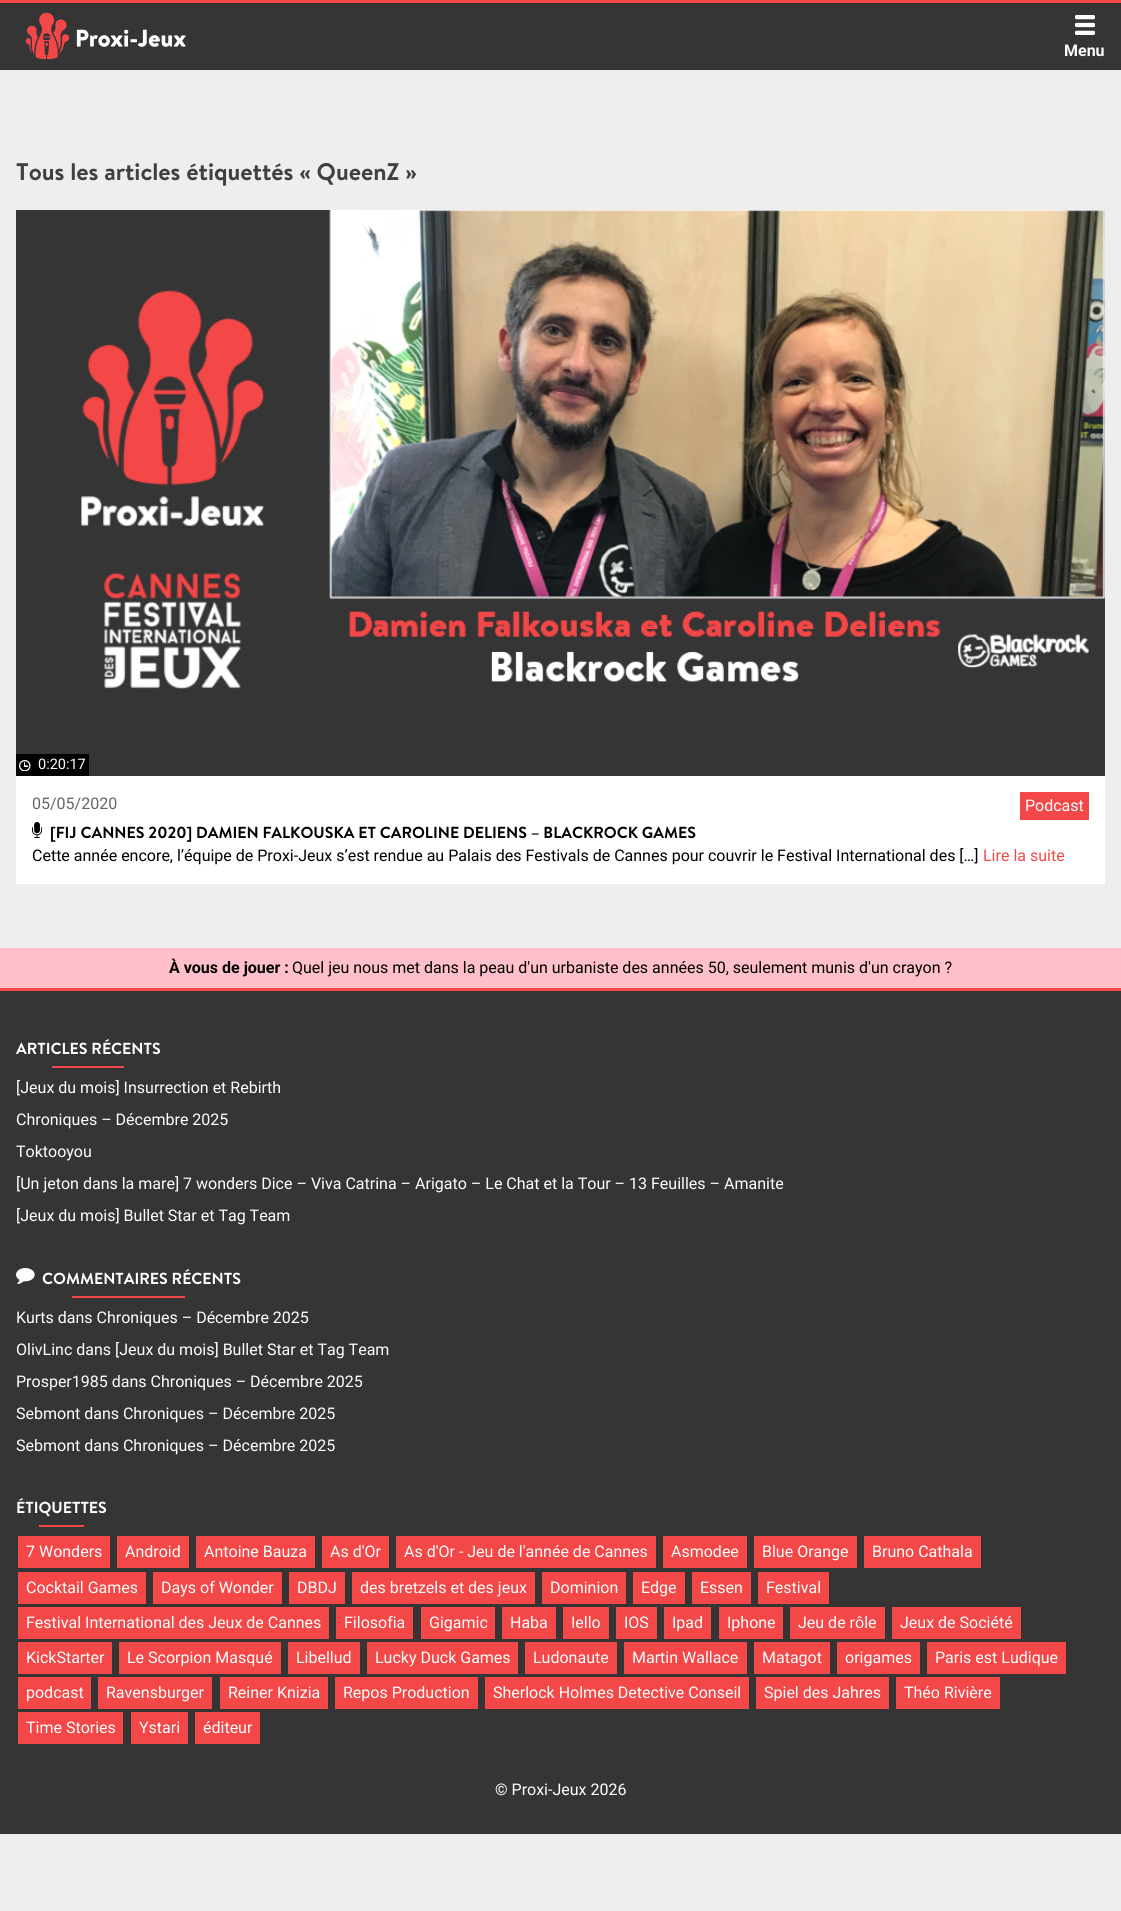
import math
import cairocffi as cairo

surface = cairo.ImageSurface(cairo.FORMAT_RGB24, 1121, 1911)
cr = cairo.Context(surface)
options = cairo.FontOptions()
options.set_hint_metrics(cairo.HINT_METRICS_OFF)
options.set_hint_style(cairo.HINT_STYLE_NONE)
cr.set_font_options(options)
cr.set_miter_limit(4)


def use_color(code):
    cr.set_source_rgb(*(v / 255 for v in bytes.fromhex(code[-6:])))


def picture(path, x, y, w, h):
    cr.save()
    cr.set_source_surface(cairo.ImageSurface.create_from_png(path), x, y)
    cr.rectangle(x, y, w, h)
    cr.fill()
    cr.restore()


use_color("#eeeeee")
cr.paint()
use_color("#353535")
cr.rectangle(0, 3, 1121, 66)
cr.fill()
use_color("#f44747")
cr.rectangle(0, 0, 1121, 3)
cr.fill()
use_color("#333333")
cr.rectangle(0, 69, 1121, 1)
cr.fill()
picture("img1.png", 25, 12, 161, 48)
picture("img2.png", 1075, 15, 20, 20)
cr.select_font_face("Roboto", cairo.FONT_SLANT_NORMAL, cairo.FONT_WEIGHT_BOLD)
cr.set_font_size(16)
use_color("#ffffff")
cr.move_to(1064, 56)
cr.show_text("Menu")
cr.select_font_face("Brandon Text", cairo.FONT_SLANT_NORMAL, cairo.FONT_WEIGHT_BOLD)
cr.set_font_size(24)
use_color("#404040")
cr.move_to(16, 180)
cr.show_text("Tous les articles étiquettés « QueenZ »")
use_color("#ffffff")
cr.rectangle(16, 776, 1089, 108)
cr.fill()
picture("img3.png", 16, 210, 1089, 566)
use_color("#000000")
cr.rectangle(16, 754, 73, 22)
cr.fill()
picture("img4.png", 19, 760, 12, 11)
cr.select_font_face("Roboto")
cr.set_font_size(14.5)
use_color("#ffffff")
cr.move_to(38, 769)
cr.show_text("0:20:17")
cr.set_font_size(16)
use_color("#666666")
cr.move_to(32, 809)
cr.show_text("05/05/2020")
use_color("#f44747")
cr.rectangle(1020, 792, 69, 28)
cr.fill()
use_color("#ffffff")
cr.move_to(1025, 811)
cr.show_text("Podcast")
picture("img5.png", 32, 822, 10, 16)
cr.select_font_face("Brandon Text", cairo.FONT_SLANT_NORMAL, cairo.FONT_WEIGHT_BOLD)
use_color("#000000")
cr.move_to(50, 838)
cr.show_text("[FIJ CANNES 2020] DAMIEN FALKOUSKA ET CAROLINE DELIENS – BLACKROCK GAMES")
cr.select_font_face("Roboto")
cr.move_to(32, 861)
cr.show_text("Cette année encore, l’équipe de Proxi-Jeux s’est rendue au Palais des Festivals de Cannes pour couvrir le Festival International des […]")
use_color("#f44747")
cr.move_to(983, 861)
cr.show_text("Lire la suite")
use_color("#353535")
cr.rectangle(0, 991, 1121, 843)
cr.fill()
use_color("#ffc0cb")
cr.rectangle(0, 948, 1121, 40)
cr.fill()
use_color("#f44747")
cr.rectangle(0, 988, 1121, 3)
cr.fill()
cr.select_font_face("Roboto", cairo.FONT_SLANT_NORMAL, cairo.FONT_WEIGHT_BOLD)
use_color("#000000")
cr.move_to(169, 973)
cr.show_text("À vous de jouer :")
cr.select_font_face("Roboto")
cr.move_to(292, 973)
cr.show_text("Quel jeu nous met dans la peau d'un urbaniste des années 50, seulement munis d'un crayon ?")
cr.select_font_face("Brandon Text", cairo.FONT_SLANT_NORMAL, cairo.FONT_WEIGHT_BOLD)
use_color("#ffffff")
cr.move_to(16, 1054)
cr.show_text("ARTICLES RÉCENTS")
use_color("#f44747")
cr.rectangle(52, 1066, 72, 2)
cr.fill()
cr.select_font_face("Roboto")
use_color("#ffffff")
cr.move_to(16, 1093)
cr.show_text("[Jeux du mois] Insurrection et Rebirth")
cr.move_to(16, 1125)
cr.show_text("Chroniques – Décembre 2025")
cr.move_to(16, 1157)
cr.show_text("Toktooyou")
cr.move_to(16, 1189)
cr.show_text("[Un jeton dans la mare] 7 wonders Dice – Viva Catrina – Arigato – Le Chat et la Tour – 13 Feuilles – Amanite")
cr.move_to(16, 1221)
cr.show_text("[Jeux du mois] Bullet Star et Tag Team")
picture("img6.png", 16, 1268, 19, 16)
cr.select_font_face("Brandon Text", cairo.FONT_SLANT_NORMAL, cairo.FONT_WEIGHT_BOLD)
cr.move_to(42, 1284)
cr.show_text("COMMENTAIRES RÉCENTS")
use_color("#f44747")
cr.rectangle(72, 1296, 113, 2)
cr.fill()
cr.select_font_face("Roboto")
use_color("#ffffff")
cr.move_to(16, 1323)
cr.show_text("Kurts dans Chroniques – Décembre 2025")
cr.move_to(16, 1355)
cr.show_text("OlivLinc dans [Jeux du mois] Bullet Star et Tag Team")
cr.move_to(16, 1387)
cr.show_text("Prosper1985 dans Chroniques – Décembre 2025")
cr.move_to(16, 1419)
cr.show_text("Sebmont dans Chroniques – Décembre 2025")
cr.move_to(16, 1451)
cr.show_text("Sebmont dans Chroniques – Décembre 2025")
cr.select_font_face("Brandon Text", cairo.FONT_SLANT_NORMAL, cairo.FONT_WEIGHT_BOLD)
cr.move_to(16, 1513)
cr.show_text("ÉTIQUETTES")
use_color("#f44747")
cr.rectangle(39, 1525, 45, 2)
cr.fill()
cr.rectangle(18, 1536, 92, 32)
cr.fill()
cr.select_font_face("Roboto")
use_color("#ffffff")
cr.move_to(26, 1557)
cr.show_text("7 Wonders")
use_color("#f44747")
cr.rectangle(117, 1536, 72, 32)
cr.fill()
use_color("#ffffff")
cr.move_to(125, 1557)
cr.show_text("Android")
use_color("#f44747")
cr.rectangle(196, 1536, 119, 32)
cr.fill()
use_color("#ffffff")
cr.move_to(204, 1557)
cr.show_text("Antoine Bauza")
use_color("#f44747")
cr.rectangle(322, 1536, 67, 32)
cr.fill()
use_color("#ffffff")
cr.move_to(330, 1557)
cr.show_text("As d'Or")
use_color("#f44747")
cr.rectangle(396, 1536, 260, 32)
cr.fill()
use_color("#ffffff")
cr.move_to(404, 1557)
cr.show_text("As d'Or - Jeu de l'année de Cannes")
use_color("#f44747")
cr.rectangle(663, 1536, 84, 32)
cr.fill()
use_color("#ffffff")
cr.move_to(671, 1557)
cr.show_text("Asmodee")
use_color("#f44747")
cr.rectangle(754, 1536, 103, 32)
cr.fill()
use_color("#ffffff")
cr.move_to(762, 1557)
cr.show_text("Blue Orange")
use_color("#f44747")
cr.rectangle(864, 1536, 117, 32)
cr.fill()
use_color("#ffffff")
cr.move_to(872, 1557)
cr.show_text("Bruno Cathala")
use_color("#f44747")
cr.rectangle(18, 1572, 128, 32)
cr.fill()
use_color("#ffffff")
cr.move_to(26, 1593)
cr.show_text("Cocktail Games")
use_color("#f44747")
cr.rectangle(153, 1572, 129, 32)
cr.fill()
use_color("#ffffff")
cr.move_to(161, 1593)
cr.show_text("Days of Wonder")
use_color("#f44747")
cr.rectangle(289, 1572, 56, 32)
cr.fill()
use_color("#ffffff")
cr.move_to(297, 1593)
cr.show_text("DBDJ")
use_color("#f44747")
cr.rectangle(352, 1572, 183, 32)
cr.fill()
use_color("#ffffff")
cr.move_to(360, 1593)
cr.show_text("des bretzels et des jeux")
use_color("#f44747")
cr.rectangle(542, 1572, 84, 32)
cr.fill()
use_color("#ffffff")
cr.move_to(550, 1593)
cr.show_text("Dominion")
use_color("#f44747")
cr.rectangle(633, 1572, 52, 32)
cr.fill()
use_color("#ffffff")
cr.move_to(641, 1593)
cr.show_text("Edge")
use_color("#f44747")
cr.rectangle(692, 1572, 59, 32)
cr.fill()
use_color("#ffffff")
cr.move_to(700, 1593)
cr.show_text("Essen")
use_color("#f44747")
cr.rectangle(758, 1572, 71, 32)
cr.fill()
use_color("#ffffff")
cr.move_to(766, 1593)
cr.show_text("Festival")
use_color("#f44747")
cr.rectangle(18, 1607, 311, 32)
cr.fill()
use_color("#ffffff")
cr.move_to(26, 1628)
cr.show_text("Festival International des Jeux de Cannes")
use_color("#f44747")
cr.rectangle(336, 1607, 77, 32)
cr.fill()
use_color("#ffffff")
cr.move_to(344, 1628)
cr.show_text("Filosofia")
use_color("#f44747")
cr.rectangle(421, 1607, 74, 32)
cr.fill()
use_color("#ffffff")
cr.move_to(429, 1628)
cr.show_text("Gigamic")
use_color("#f44747")
cr.rectangle(502, 1607, 54, 32)
cr.fill()
use_color("#ffffff")
cr.move_to(510, 1628)
cr.show_text("Haba")
use_color("#f44747")
cr.rectangle(563, 1607, 46, 32)
cr.fill()
use_color("#ffffff")
cr.move_to(571, 1628)
cr.show_text("Iello")
use_color("#f44747")
cr.rectangle(616, 1607, 41, 32)
cr.fill()
use_color("#ffffff")
cr.move_to(624, 1628)
cr.show_text("IOS")
use_color("#f44747")
cr.rectangle(664, 1607, 47, 32)
cr.fill()
use_color("#ffffff")
cr.move_to(672, 1628)
cr.show_text("Ipad")
use_color("#f44747")
cr.rectangle(719, 1607, 64, 32)
cr.fill()
use_color("#ffffff")
cr.move_to(727, 1628)
cr.show_text("Iphone")
use_color("#f44747")
cr.rectangle(790, 1607, 95, 32)
cr.fill()
use_color("#ffffff")
cr.move_to(798, 1628)
cr.show_text("Jeu de rôle")
use_color("#f44747")
cr.rectangle(892, 1607, 129, 32)
cr.fill()
use_color("#ffffff")
cr.move_to(900, 1628)
cr.show_text("Jeux de Société")
use_color("#f44747")
cr.rectangle(18, 1642, 94, 32)
cr.fill()
use_color("#ffffff")
cr.move_to(26, 1663)
cr.show_text("KickStarter")
use_color("#f44747")
cr.rectangle(119, 1642, 162, 32)
cr.fill()
use_color("#ffffff")
cr.move_to(127, 1663)
cr.show_text("Le Scorpion Masqué")
use_color("#f44747")
cr.rectangle(288, 1642, 72, 32)
cr.fill()
use_color("#ffffff")
cr.move_to(296, 1663)
cr.show_text("Libellud")
use_color("#f44747")
cr.rectangle(367, 1642, 151, 32)
cr.fill()
use_color("#ffffff")
cr.move_to(375, 1663)
cr.show_text("Lucky Duck Games")
use_color("#f44747")
cr.rectangle(525, 1642, 92, 32)
cr.fill()
use_color("#ffffff")
cr.move_to(533, 1663)
cr.show_text("Ludonaute")
use_color("#f44747")
cr.rectangle(624, 1642, 123, 32)
cr.fill()
use_color("#ffffff")
cr.move_to(632, 1663)
cr.show_text("Martin Wallace")
use_color("#f44747")
cr.rectangle(754, 1642, 76, 32)
cr.fill()
use_color("#ffffff")
cr.move_to(762, 1663)
cr.show_text("Matagot")
use_color("#f44747")
cr.rectangle(837, 1642, 83, 32)
cr.fill()
use_color("#ffffff")
cr.move_to(845, 1663)
cr.show_text("origames")
use_color("#f44747")
cr.rectangle(927, 1642, 139, 32)
cr.fill()
use_color("#ffffff")
cr.move_to(935, 1663)
cr.show_text("Paris est Ludique")
use_color("#f44747")
cr.rectangle(18, 1677, 73, 32)
cr.fill()
use_color("#ffffff")
cr.move_to(26, 1698)
cr.show_text("podcast")
use_color("#f44747")
cr.rectangle(98, 1677, 114, 32)
cr.fill()
use_color("#ffffff")
cr.move_to(106, 1698)
cr.show_text("Ravensburger")
use_color("#f44747")
cr.rectangle(220, 1677, 108, 32)
cr.fill()
use_color("#ffffff")
cr.move_to(228, 1698)
cr.show_text("Reiner Knizia")
use_color("#f44747")
cr.rectangle(335, 1677, 143, 32)
cr.fill()
use_color("#ffffff")
cr.move_to(343, 1698)
cr.show_text("Repos Production")
use_color("#f44747")
cr.rectangle(485, 1677, 264, 32)
cr.fill()
use_color("#ffffff")
cr.move_to(493, 1698)
cr.show_text("Sherlock Holmes Detective Conseil")
use_color("#f44747")
cr.rectangle(756, 1677, 133, 32)
cr.fill()
use_color("#ffffff")
cr.move_to(764, 1698)
cr.show_text("Spiel des Jahres")
use_color("#f44747")
cr.rectangle(896, 1677, 104, 32)
cr.fill()
use_color("#ffffff")
cr.move_to(904, 1698)
cr.show_text("Théo Rivière")
use_color("#f44747")
cr.rectangle(18, 1712, 105, 32)
cr.fill()
use_color("#ffffff")
cr.move_to(26, 1733)
cr.show_text("Time Stories")
use_color("#f44747")
cr.rectangle(131, 1712, 57, 32)
cr.fill()
use_color("#ffffff")
cr.move_to(139, 1733)
cr.show_text("Ystari")
use_color("#f44747")
cr.rectangle(195, 1712, 65, 32)
cr.fill()
use_color("#ffffff")
cr.move_to(203, 1733)
cr.show_text("éditeur")
cr.move_to(495, 1795)
cr.show_text("© Proxi-Jeux 2026")
surface.write_to_png("result.png")
